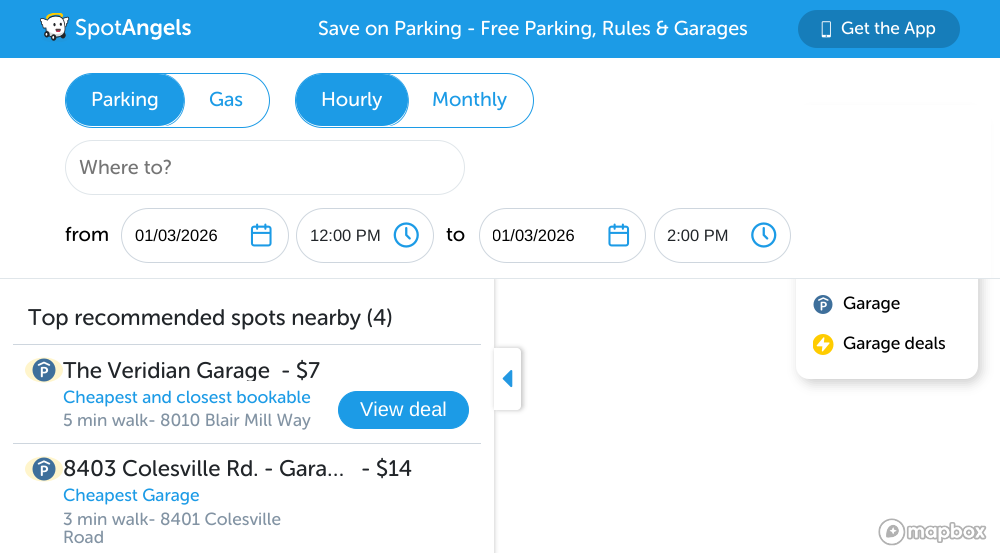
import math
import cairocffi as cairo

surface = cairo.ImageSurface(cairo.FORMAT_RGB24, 1000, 553)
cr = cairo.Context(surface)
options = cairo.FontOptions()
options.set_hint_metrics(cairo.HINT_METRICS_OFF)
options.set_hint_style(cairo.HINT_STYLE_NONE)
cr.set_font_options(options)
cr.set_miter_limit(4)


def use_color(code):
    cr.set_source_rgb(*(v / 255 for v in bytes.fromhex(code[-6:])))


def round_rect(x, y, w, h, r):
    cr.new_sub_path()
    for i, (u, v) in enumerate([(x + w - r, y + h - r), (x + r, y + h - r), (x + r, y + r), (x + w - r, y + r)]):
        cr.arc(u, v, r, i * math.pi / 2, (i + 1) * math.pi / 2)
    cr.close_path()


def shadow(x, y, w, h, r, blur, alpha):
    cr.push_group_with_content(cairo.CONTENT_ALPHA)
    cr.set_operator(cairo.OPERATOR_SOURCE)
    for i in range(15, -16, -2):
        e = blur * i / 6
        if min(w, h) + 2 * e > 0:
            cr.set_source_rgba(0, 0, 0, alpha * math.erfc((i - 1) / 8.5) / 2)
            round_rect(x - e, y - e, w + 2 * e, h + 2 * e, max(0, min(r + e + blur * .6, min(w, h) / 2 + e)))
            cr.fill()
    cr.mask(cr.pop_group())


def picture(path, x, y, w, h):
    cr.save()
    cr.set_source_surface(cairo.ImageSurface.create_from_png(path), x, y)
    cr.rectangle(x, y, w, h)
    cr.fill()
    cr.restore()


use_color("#ffffff")
cr.paint()
use_color("#1c9be6")
cr.rectangle(0, 0, 1000, 58)
cr.fill()
picture("img1.png", 40, 13, 151, 29)
cr.select_font_face("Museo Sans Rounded")
cr.set_font_size(20)
use_color("#ffffff")
cr.move_to(318, 35)
cr.show_text("Save on Parking - Free Parking, Rules & Garages")
use_color("#167dba")
round_rect(798, 10, 162, 38, 19)
cr.fill()
picture("img2.png", 821, 21, 10, 17)
cr.set_font_size(17.5)
use_color("#ffffff")
cr.move_to(841, 34)
cr.show_text("Get the App")
use_color("#000000")
shadow(0, 279, 494, 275, 0, 2.5, 0.25)
use_color("#cccccc")
shadow(800, 115, 181, 268, 13, 6, 1)
use_color("#ffffff")
round_rect(796, 111, 182, 268, 13)
cr.fill()
cr.rectangle(0, 105, 991, 173)
cr.fill()
use_color("#e0e6ea")
cr.rectangle(0, 278, 1000, 1)
cr.fill()
round_rect(65.5, 73.5, 204, 54, 27)
use_color("#1c9be6")
cr.set_line_width(1)
cr.stroke()
cr.set_fill_rule(cairo.FILL_RULE_EVEN_ODD)
cr.new_path()
cr.move_to(165, 74)
cr.curve_to(186, 80, 192, 108, 175, 122)
cr.curve_to(172, 124, 169, 126, 165, 126)
cr.curve_to(194, 118, 188, 74, 158, 74)
cr.close_path()
cr.move_to(92, 74)
cr.curve_to(78, 74, 66, 86, 66, 100)
cr.curve_to(66, 86, 78, 74, 92, 74)
cr.close_path()
cr.fill()
round_rect(66, 74, 118, 52, 26)
cr.fill()
cr.set_font_size(20)
use_color("#ffffff")
cr.move_to(91, 106)
cr.show_text("Parking")
use_color("#1c9be6")
cr.move_to(209, 106)
cr.show_text("Gas")
round_rect(295.5, 73.5, 238, 54, 27)
cr.stroke()
cr.new_path()
cr.move_to(389, 74)
cr.curve_to(410, 80, 416, 108, 399, 122)
cr.curve_to(396, 124, 393, 126, 389, 126)
cr.curve_to(418, 118, 412, 74, 382, 74)
cr.close_path()
cr.move_to(322, 74)
cr.curve_to(308, 74, 296, 86, 296, 100)
cr.curve_to(296, 86, 308, 74, 322, 74)
cr.close_path()
cr.fill()
round_rect(296, 74, 112, 52, 26)
cr.fill()
use_color("#ffffff")
cr.move_to(321, 106)
cr.show_text("Hourly")
use_color("#1c9be6")
cr.move_to(432, 106)
cr.show_text("Monthly")
round_rect(65.5, 140.5, 399, 54, 27)
use_color("#e0e6ea")
cr.stroke()
use_color("#757575")
cr.move_to(79, 174)
cr.show_text("Where to?")
use_color("#000000")
cr.move_to(65, 241)
cr.show_text("from")
picture("img3.png", 250, 223, 22, 24)
round_rect(121.5, 208.5, 167, 54, 27)
use_color("#ced6de")
cr.stroke()
cr.select_font_face("Liberation Sans")
cr.set_font_size(16.5)
use_color("#000000")
cr.move_to(135, 241)
cr.show_text("01/03/2026")
picture("img4.png", 393, 222, 26, 26)
round_rect(296.5, 208.5, 137, 54, 27)
use_color("#ced6de")
cr.stroke()
use_color("#212529")
cr.move_to(310, 241)
cr.show_text("12:00 PM")
cr.select_font_face("Museo Sans Rounded")
cr.set_font_size(20)
use_color("#000000")
cr.move_to(446, 241)
cr.show_text("to")
picture("img5.png", 608, 223, 22, 24)
round_rect(479.5, 208.5, 166, 54, 27)
use_color("#ced6de")
cr.stroke()
cr.save()
cr.set_fill_rule(cairo.FILL_RULE_WINDING)
cr.rectangle(493, 226, 150, 19)
cr.clip()
cr.select_font_face("Liberation Sans")
cr.set_font_size(16.5)
use_color("#000000")
cr.move_to(492, 241)
cr.show_text("01/03/2026")
cr.restore()
picture("img6.png", 751, 222, 26, 26)
round_rect(654.5, 208.5, 136, 54, 27)
cr.stroke()
cr.select_font_face("Liberation Sans")
cr.set_font_size(16.5)
use_color("#212529")
cr.move_to(667, 241)
cr.show_text("2:00 PM")
use_color("#ffffff")
cr.rectangle(0, 279, 494, 274)
cr.fill()
cr.select_font_face("Museo Sans Rounded")
cr.set_font_size(22.5)
use_color("#212529")
cr.move_to(28, 325)
cr.show_text("Top recommended spots nearby (4)")
use_color("#ced6de")
cr.rectangle(13, 344, 468, 1)
cr.fill()
cr.rectangle(13, 443, 468, 1)
cr.fill()
use_color("#fff5cc")
cr.new_path()
cr.move_to(44, 357.5)
cr.curve_to(54.5, 357.5, 63, 363, 63, 370)
cr.curve_to(63, 377, 54.5, 382.5, 44, 382.5)
cr.curve_to(33.5, 382.5, 25, 377, 25, 370)
cr.curve_to(25, 363, 33.5, 357.5, 44, 357.5)
cr.close_path()
cr.fill()
picture("img7.png", 32, 358, 24, 24)
cr.save()
cr.set_fill_rule(cairo.FILL_RULE_WINDING)
cr.rectangle(63, 359, 207, 22)
cr.clip()
use_color("#212529")
cr.move_to(63, 378)
cr.show_text("The Veridian Garage")
cr.restore()
use_color("#212529")
cr.move_to(281, 378)
cr.show_text("- $7")
cr.set_font_size(17.5)
use_color("#1c9be6")
cr.move_to(63, 403)
cr.show_text("Cheapest and closest bookable")
round_rect(338.5, 391.5, 130, 37, 18.5)
cr.fill_preserve()
cr.stroke()
cr.select_font_face("Liberation Sans")
cr.set_font_size(20)
use_color("#ffffff")
cr.move_to(360, 416)
cr.show_text("View deal")
cr.select_font_face("Museo Sans Rounded")
cr.set_font_size(17.5)
use_color("#8293a3")
cr.move_to(63, 426)
cr.show_text("5 min walk- 8010 Blair Mill Way")
use_color("#fff5cc")
cr.new_path()
cr.move_to(44, 456.5)
cr.curve_to(54.5, 456.5, 63, 462, 63, 469)
cr.curve_to(63, 476, 54.5, 481.5, 44, 481.5)
cr.curve_to(33.5, 481.5, 25, 476, 25, 469)
cr.curve_to(25, 462, 33.5, 456.5, 44, 456.5)
cr.close_path()
cr.fill()
picture("img8.png", 32, 457, 24, 24)
cr.set_font_size(22.5)
use_color("#212529")
cr.move_to(63, 476)
cr.show_text("8403 Colesville Rd. - Gara…")
cr.move_to(361, 476)
cr.show_text("- $14")
cr.set_font_size(17.5)
use_color("#1c9be6")
cr.move_to(63, 501)
cr.show_text("Cheapest Garage")
use_color("#8293a3")
cr.move_to(63, 525)
cr.show_text("3 min walk- 8401 Colesville")
cr.move_to(63, 543)
cr.show_text("Road")
use_color("#000000")
shadow(495, 348, 28, 62, 4, 2.5, 0.25)
use_color("#ffffff")
cr.new_path()
cr.move_to(494, 348)
cr.line_to(517, 348)
cr.curve_to(519, 348, 521, 350, 521, 352)
cr.line_to(521, 406)
cr.curve_to(521, 408, 519, 410, 517, 410)
cr.line_to(494, 410)
cr.close_path()
cr.fill()
picture("img9.png", 502, 370, 11, 18)
picture("img10.png", 813, 295, 20, 19)
use_color("#000000")
cr.move_to(843, 309)
cr.show_text("Garage")
picture("img11.png", 813, 334, 21, 21)
cr.move_to(843, 349)
cr.show_text("Garage deals")
picture("img12.png", 878, 518, 109, 28)
surface.write_to_png("result.png")
